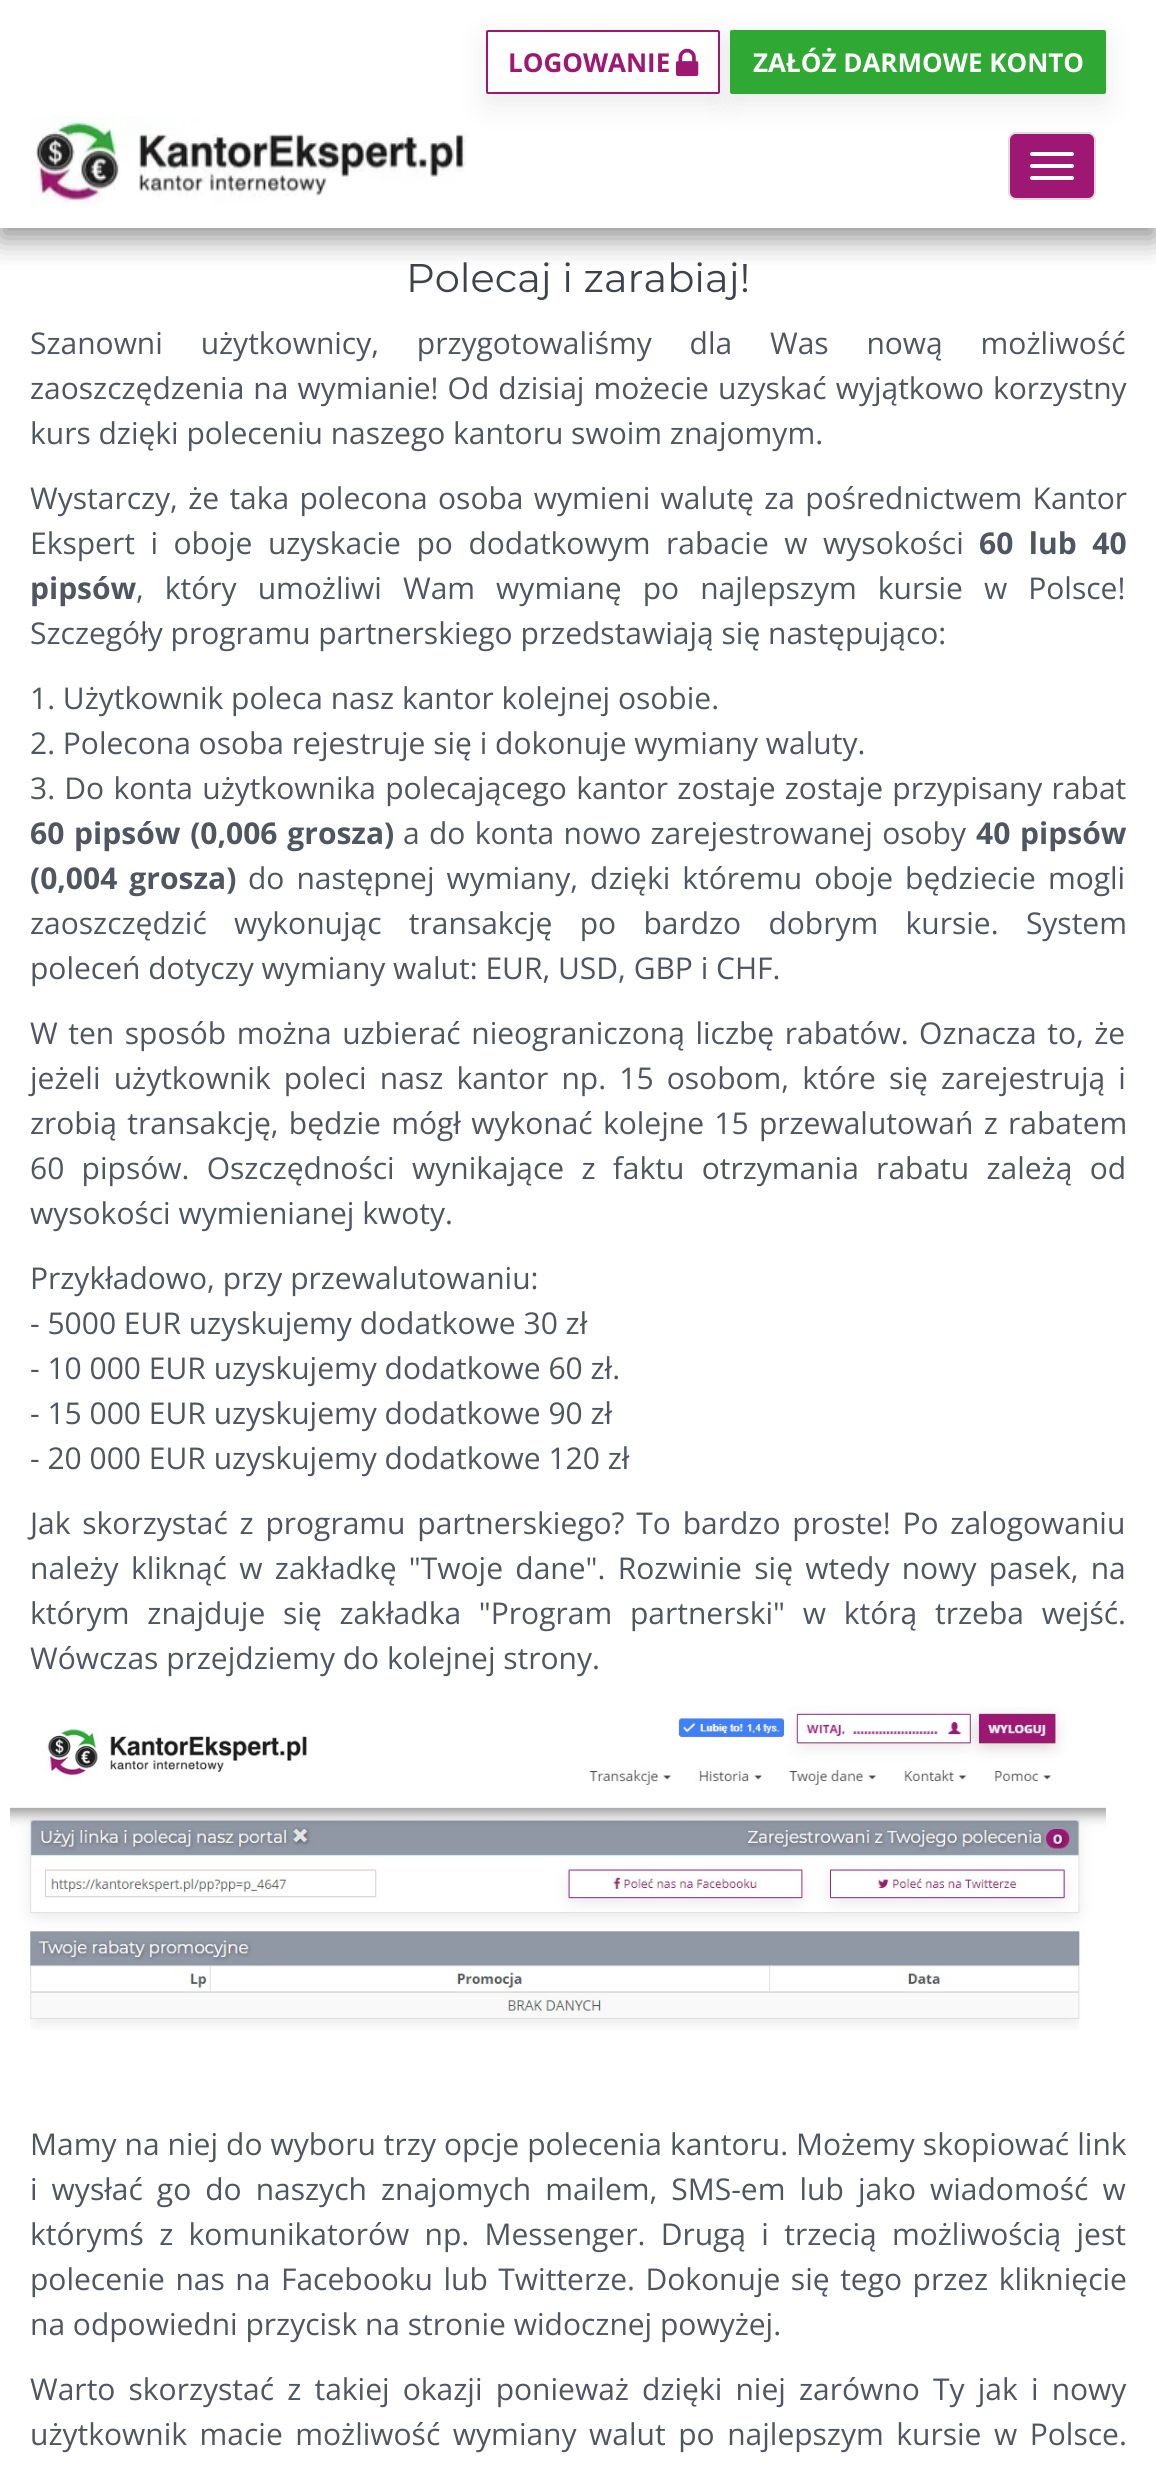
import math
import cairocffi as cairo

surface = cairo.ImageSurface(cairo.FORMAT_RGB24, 1156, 2472)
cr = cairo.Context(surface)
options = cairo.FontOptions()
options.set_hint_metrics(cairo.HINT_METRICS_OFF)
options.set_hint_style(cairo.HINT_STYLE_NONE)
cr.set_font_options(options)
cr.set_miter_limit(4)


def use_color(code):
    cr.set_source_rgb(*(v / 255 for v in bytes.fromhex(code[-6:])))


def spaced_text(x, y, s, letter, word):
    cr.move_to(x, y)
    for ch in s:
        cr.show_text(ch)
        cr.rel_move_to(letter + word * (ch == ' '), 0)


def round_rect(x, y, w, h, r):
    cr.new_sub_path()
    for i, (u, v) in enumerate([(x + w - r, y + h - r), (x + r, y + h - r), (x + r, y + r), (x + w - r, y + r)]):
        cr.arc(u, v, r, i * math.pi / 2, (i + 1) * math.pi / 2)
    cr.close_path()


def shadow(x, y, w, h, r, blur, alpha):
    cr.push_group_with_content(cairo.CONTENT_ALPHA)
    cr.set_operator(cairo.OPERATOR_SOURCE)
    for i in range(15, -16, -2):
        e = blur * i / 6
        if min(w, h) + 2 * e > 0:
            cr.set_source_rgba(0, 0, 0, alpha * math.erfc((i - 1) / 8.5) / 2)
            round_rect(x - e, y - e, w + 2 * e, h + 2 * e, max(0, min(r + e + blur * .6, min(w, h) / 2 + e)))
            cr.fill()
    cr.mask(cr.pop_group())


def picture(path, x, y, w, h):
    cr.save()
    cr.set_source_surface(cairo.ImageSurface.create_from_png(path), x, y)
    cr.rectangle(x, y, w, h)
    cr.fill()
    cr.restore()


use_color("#ffffff")
cr.paint()
cr.save()
cr.rectangle(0, 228, 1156, 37)
cr.clip()
use_color("#323232")
shadow(0, 10, 1156, 228, 0, 15, 0.55)
cr.restore()
cr.save()
cr.set_fill_rule(cairo.FILL_RULE_EVEN_ODD)
cr.new_path()
cr.move_to(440, 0)
cr.line_to(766, 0)
cr.line_to(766, 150)
cr.line_to(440, 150)
cr.close_path()
cr.move_to(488, 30)
cr.line_to(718, 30)
cr.curve_to(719, 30, 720, 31, 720, 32)
cr.line_to(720, 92)
cr.curve_to(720, 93, 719, 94, 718, 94)
cr.line_to(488, 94)
cr.curve_to(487, 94, 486, 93, 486, 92)
cr.line_to(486, 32)
cr.curve_to(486, 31, 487, 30, 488, 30)
cr.close_path()
cr.clip()
use_color("#323232")
shadow(486, 40, 234, 64, 2, 15, 0.1)
cr.restore()
round_rect(487, 31, 232, 62, 1)
use_color("#9e1773")
cr.stroke()
cr.select_font_face("Open Sans", cairo.FONT_SLANT_NORMAL, cairo.FONT_WEIGHT_BOLD)
cr.set_font_size(26)
cr.move_to(508, 72)
cr.show_text("LOGOWANIE")
use_color("#323232")
shadow(730, 40, 376, 64, 2, 15, 0.1)
picture("img1.png", 676, 48, 23, 28)
use_color("#2fa933")
round_rect(731, 31, 374, 62, 1)
cr.fill_preserve()
cr.stroke()
use_color("#ffffff")
cr.move_to(753, 72)
cr.show_text("ZAŁÓŻ DARMOWE KONTO")
picture("img2.png", 30, 116, 437, 92)
use_color("#9e1773")
round_rect(1009, 133, 86, 66, 7)
cr.fill_preserve()
use_color("#dddddd")
cr.stroke()
use_color("#ffffff")
round_rect(1030, 152, 44, 4, 2)
cr.fill()
round_rect(1030, 164, 44, 4, 2)
cr.fill()
round_rect(1030, 176, 44, 4, 2)
cr.fill()
cr.select_font_face("Montserrat")
cr.set_font_size(40)
use_color("#3d424b")
cr.move_to(406, 292)
cr.show_text("Polecaj i zarabiaj!")
cr.select_font_face("Open Sans")
cr.set_font_size(30)
use_color("#4f5661")
spaced_text(30, 354, "Szanowni użytkownicy, przygotowaliśmy dla Was nową możliwość", 0, 30)
spaced_text(30, 399, "zaoszczędzenia na wymianie! Od dzisiaj możecie uzyskać wyjątkowo korzystny", 0, 1.25)
cr.move_to(30, 444)
cr.show_text("kurs dzięki poleceniu naszego kantoru swoim znajomym.")
spaced_text(30, 509, "Wystarczy, że taka polecona osoba wymieni walutę za pośrednictwem Kantor", 0, 2.5)
spaced_text(30, 554, "Ekspert i oboje uzyskacie po dodatkowym rabacie w wysokości", 0, 7.75)
cr.select_font_face("Open Sans", cairo.FONT_SLANT_NORMAL, cairo.FONT_WEIGHT_BOLD)
spaced_text(979, 554, "60 lub 40", 0, 7.75)
cr.move_to(30, 599)
cr.show_text("pipsów")
cr.select_font_face("Open Sans")
spaced_text(136, 599, ", który umożliwi Wam wymianę po najlepszym kursie w Polsce!", 0, 13.25)
cr.move_to(30, 644)
cr.show_text("Szczegóły programu partnerskiego przedstawiają się następująco:")
cr.move_to(30, 709)
cr.show_text("1. Użytkownik poleca nasz kantor kolejnej osobie.")
cr.move_to(30, 754)
cr.show_text("2. Polecona osoba rejestruje się i dokonuje wymiany waluty.")
spaced_text(30, 799, "3. Do konta użytkownika polecającego kantor zostaje zostaje przypisany rabat", 0, 1.5)
cr.select_font_face("Open Sans", cairo.FONT_SLANT_NORMAL, cairo.FONT_WEIGHT_BOLD)
spaced_text(30, 844, "60 pipsów (0,006 grosza)", 0, 2)
cr.select_font_face("Open Sans")
spaced_text(403, 844, "a do konta nowo zarejestrowanej osoby", 0, 1.5)
cr.select_font_face("Open Sans", cairo.FONT_SLANT_NORMAL, cairo.FONT_WEIGHT_BOLD)
spaced_text(976, 844, "40 pipsów", 0, 2)
spaced_text(30, 889, "(0,004 grosza)", 0, 4.25)
cr.select_font_face("Open Sans")
spaced_text(248, 889, "do następnej wymiany, dzięki któremu oboje będziecie mogli", 0, 4.25)
spaced_text(30, 934, "zaoszczędzić wykonując transakcję po bardzo dobrym kursie. System", 0, 19.5)
cr.move_to(30, 979)
cr.show_text("poleceń dotyczy wymiany walut: EUR, USD, GBP i CHF.")
spaced_text(30, 1044, "W ten sposób można uzbierać nieograniczoną liczbę rabatów. Oznacza to, że", 0, 2.75)
spaced_text(30, 1089, "jeżeli użytkownik poleci nasz kantor np. 15 osobom, które się zarejestrują i", 0, 5.4)
spaced_text(30, 1134, "zrobią transakcję, będzie mógł wykonać kolejne 15 przewalutowań z rabatem", 0, 2.5)
spaced_text(30, 1179, "60 pipsów. Oszczędności wynikające z faktu otrzymania rabatu zależą od", 0, 9.5)
cr.move_to(30, 1224)
cr.show_text("wysokości wymienianej kwoty.")
cr.move_to(30, 1289)
cr.show_text("Przykładowo, przy przewalutowaniu:")
cr.move_to(30, 1334)
cr.show_text("- 5000 EUR uzyskujemy dodatkowe 30 zł")
cr.move_to(30, 1379)
cr.show_text("- 10 000 EUR uzyskujemy dodatkowe 60 zł.")
cr.move_to(30, 1424)
cr.show_text("- 15 000 EUR uzyskujemy dodatkowe 90 zł")
cr.move_to(30, 1469)
cr.show_text("- 20 000 EUR uzyskujemy dodatkowe 120 zł")
spaced_text(30, 1534, "Jak skorzystać z programu partnerskiego? To bardzo proste! Po zalogowaniu", 0, 4)
spaced_text(30, 1579, "należy kliknąć w zakładkę \"Twoje dane\". Rozwinie się wtedy nowy pasek, na", 0, 4.5)
spaced_text(30, 1624, "którym znajduje się zakładka \"Program partnerski\" w którą trzeba wejść.", 0, 10)
cr.move_to(30, 1669)
cr.show_text("Wówczas przejdziemy do kolejnej strony.")
picture("img3.png", 10, 1706, 1096, 324)
spaced_text(30, 2155, "Mamy na niej do wyboru trzy opcje polecenia kantoru. Możemy skopiować link", 0, 0.25)
spaced_text(30, 2200, "i wysłać go do naszych znajomych mailem, SMS-em lub jako wiadomość w", 0, 6.25)
spaced_text(30, 2245, "którymś z komunikatorów np. Messenger. Drugą i trzecią możliwością jest", 0, 7.5)
spaced_text(30, 2290, "polecenie nas na Facebooku lub Twitterze. Dokonuje się tego przez kliknięcie", 0, 2.75)
cr.move_to(30, 2335)
cr.show_text("na odpowiedni przycisk na stronie widocznej powyżej.")
spaced_text(30, 2400, "Warto skorzystać z takiej okazji ponieważ dzięki niej zarówno Ty jak i nowy", 0, 5.4)
spaced_text(30, 2445, "użytkownik macie możliwość wymiany walut po najlepszym kursie w Polsce.", 0, 4.75)
surface.write_to_png("result.png")
